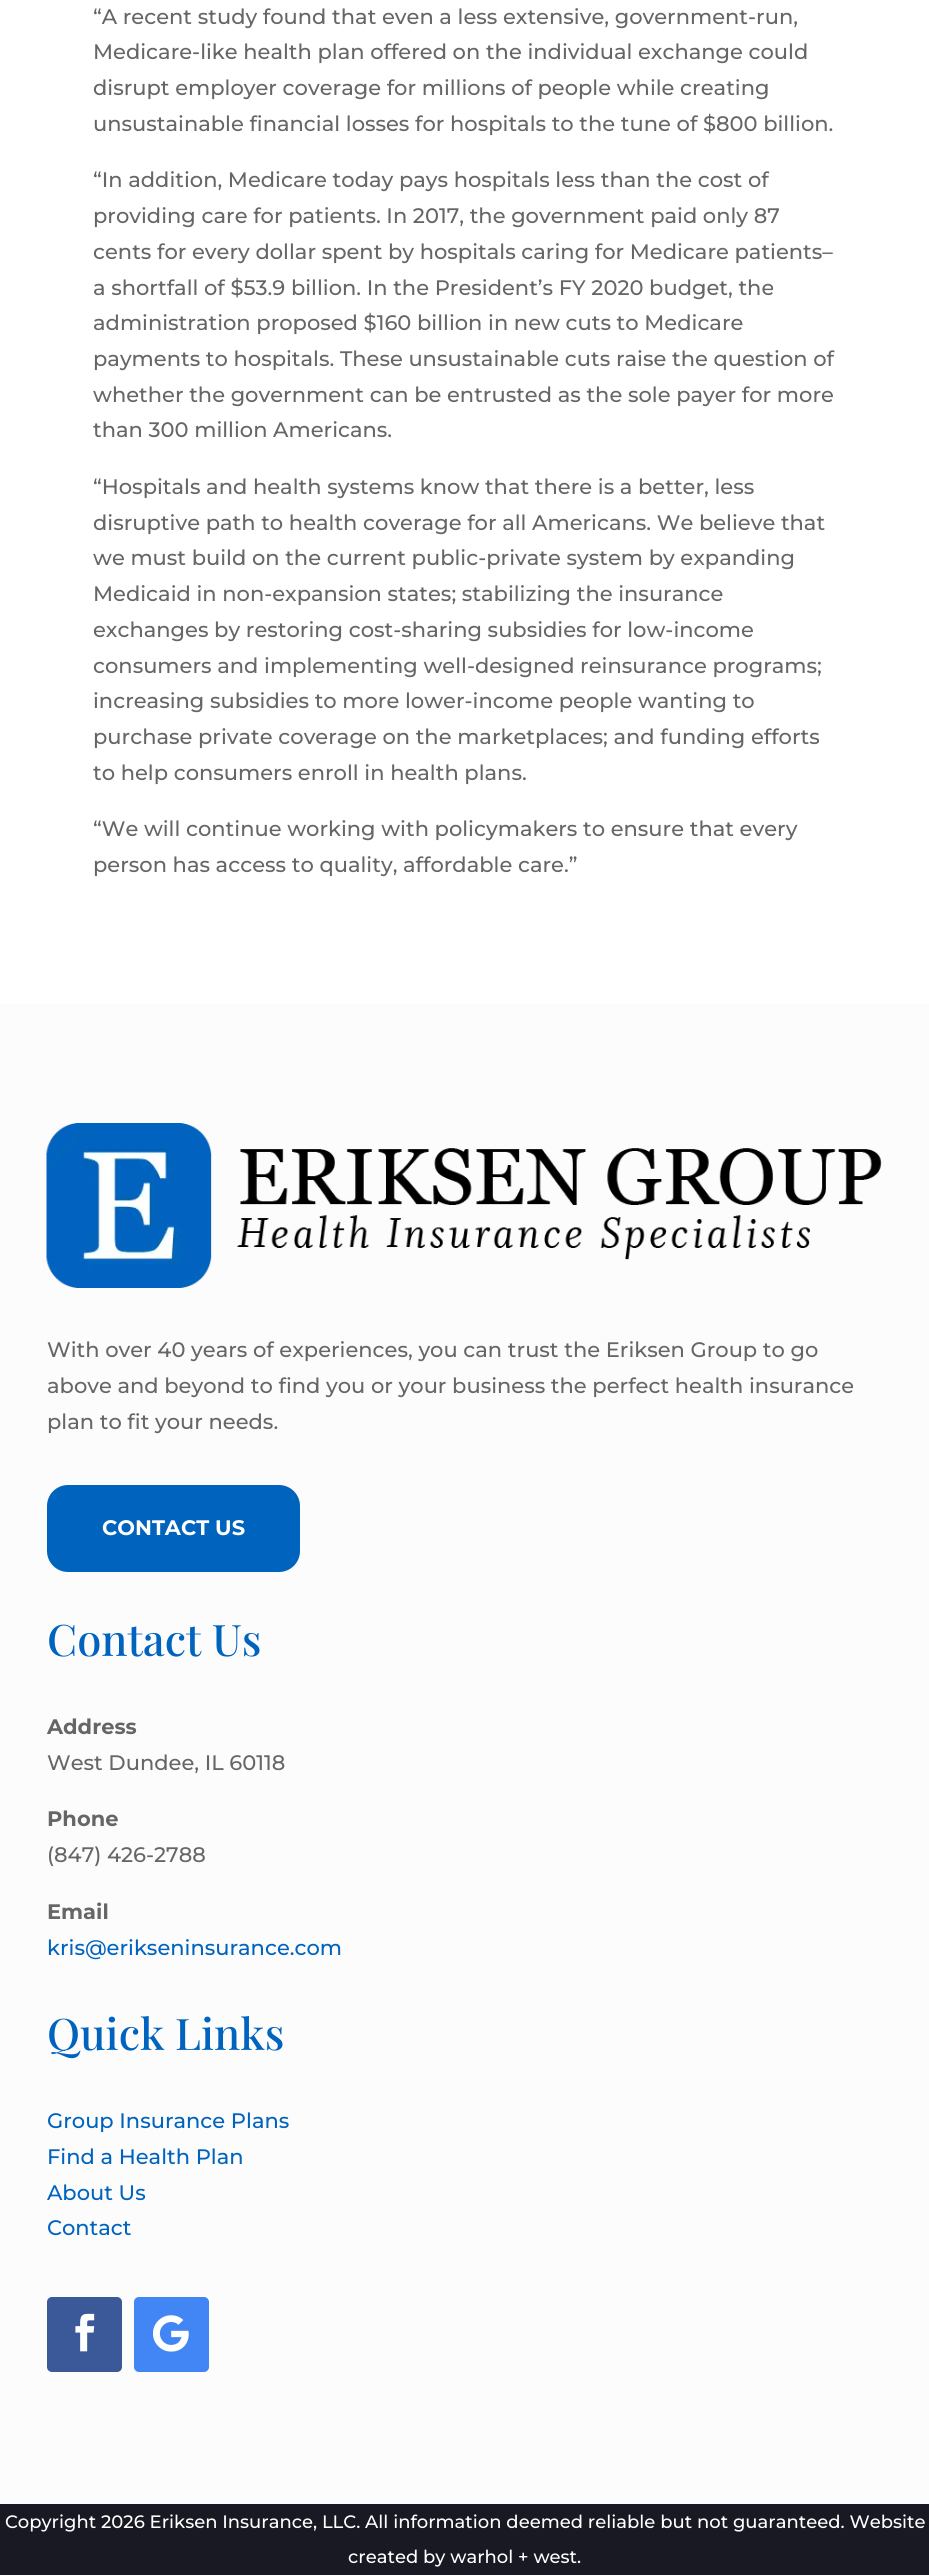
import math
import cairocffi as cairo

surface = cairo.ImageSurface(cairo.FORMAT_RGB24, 929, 2575)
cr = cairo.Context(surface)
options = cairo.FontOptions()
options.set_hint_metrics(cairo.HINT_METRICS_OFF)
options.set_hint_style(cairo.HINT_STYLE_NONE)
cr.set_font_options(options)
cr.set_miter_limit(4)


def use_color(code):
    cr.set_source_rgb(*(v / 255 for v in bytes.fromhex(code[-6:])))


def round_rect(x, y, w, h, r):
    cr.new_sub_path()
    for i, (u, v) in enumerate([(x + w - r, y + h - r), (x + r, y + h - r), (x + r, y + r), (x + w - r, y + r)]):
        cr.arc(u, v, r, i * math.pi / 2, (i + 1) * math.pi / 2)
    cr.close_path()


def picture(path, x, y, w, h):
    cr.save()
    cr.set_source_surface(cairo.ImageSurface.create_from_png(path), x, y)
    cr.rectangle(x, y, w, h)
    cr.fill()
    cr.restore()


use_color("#ffffff")
cr.paint()
cr.select_font_face("Montserrat Thin")
cr.set_font_size(21)
use_color("#666666")
cr.move_to(93, 24)
cr.show_text("“A recent study found that even a less extensive, government-run,")
cr.move_to(93, 59)
cr.show_text("Medicare-like health plan offered on the individual exchange could")
cr.move_to(93, 95)
cr.show_text("disrupt employer coverage for millions of people while creating")
cr.move_to(93, 131)
cr.show_text("unsustainable financial losses for hospitals to the tune of $800 billion.")
cr.move_to(93, 187)
cr.show_text("“In addition, Medicare today pays hospitals less than the cost of")
cr.move_to(93, 223)
cr.show_text("providing care for patients. In 2017, the government paid only 87")
cr.move_to(93, 259)
cr.show_text("cents for every dollar spent by hospitals caring for Medicare patients–")
cr.move_to(93, 295)
cr.show_text("a shortfall of $53.9 billion. In the President’s FY 2020 budget, the")
cr.move_to(93, 330)
cr.show_text("administration proposed $160 billion in new cuts to Medicare")
cr.move_to(93, 366)
cr.show_text("payments to hospitals. These unsustainable cuts raise the question of")
cr.move_to(93, 402)
cr.show_text("whether the government can be entrusted as the sole payer for more")
cr.move_to(93, 437)
cr.show_text("than 300 million Americans.")
cr.move_to(93, 494)
cr.show_text("“Hospitals and health systems know that there is a better, less")
cr.move_to(93, 530)
cr.show_text("disruptive path to health coverage for all Americans. We believe that")
cr.move_to(93, 565)
cr.show_text("we must build on the current public-private system by expanding")
cr.move_to(93, 601)
cr.show_text("Medicaid in non-expansion states; stabilizing the insurance")
cr.move_to(93, 637)
cr.show_text("exchanges by restoring cost-sharing subsidies for low-income")
cr.move_to(93, 673)
cr.show_text("consumers and implementing well-designed reinsurance programs;")
cr.move_to(93, 708)
cr.show_text("increasing subsidies to more lower-income people wanting to")
cr.move_to(93, 744)
cr.show_text("purchase private coverage on the marketplaces; and funding efforts")
cr.move_to(93, 780)
cr.show_text("to help consumers enroll in health plans.")
cr.move_to(93, 836)
cr.show_text("“We will continue working with policymakers to ensure that every")
cr.move_to(93, 872)
cr.show_text("person has access to quality, affordable care.”")
use_color("#fcfcfc")
cr.rectangle(0, 1004, 929, 1500)
cr.fill()
picture("img1.png", 46, 1123, 836, 165)
use_color("#666666")
cr.move_to(47, 1357)
cr.show_text("With over 40 years of experiences, you can trust the Eriksen Group to go")
cr.move_to(47, 1393)
cr.show_text("above and beyond to find you or your business the perfect health insurance")
cr.move_to(47, 1429)
cr.show_text("plan to fit your needs.")
use_color("#0064bf")
round_rect(48.5, 1486.5, 250, 84, 19.5)
cr.fill_preserve()
cr.set_line_width(3)
cr.stroke()
cr.select_font_face("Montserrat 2 Thin")
use_color("#ffffff")
cr.move_to(102, 1535)
cr.show_text("CONTACT US")
cr.select_font_face("Playfair Display Medium")
cr.set_font_size(43.5)
use_color("#0064bf")
cr.move_to(47, 1656)
cr.show_text("Contact Us")
cr.select_font_face("Montserrat 2 Thin")
cr.set_font_size(21)
use_color("#666666")
cr.move_to(47, 1734)
cr.show_text("Address")
cr.select_font_face("Montserrat Thin")
cr.move_to(47, 1770)
cr.show_text("West Dundee, IL 60118")
cr.select_font_face("Montserrat 2 Thin")
cr.move_to(47, 1826)
cr.show_text("Phone")
cr.select_font_face("Montserrat Thin")
cr.move_to(47, 1862)
cr.show_text("(847) 426-2788")
cr.select_font_face("Montserrat 2 Thin")
cr.move_to(47, 1919)
cr.show_text("Email")
cr.select_font_face("Montserrat Thin")
use_color("#0064bf")
cr.move_to(47, 1955)
cr.show_text("kris@erikseninsurance.com")
cr.select_font_face("Playfair Display Medium")
cr.set_font_size(43.5)
cr.move_to(47, 2050)
cr.show_text("Quick Links")
cr.select_font_face("Montserrat Thin")
cr.set_font_size(21)
cr.move_to(47, 2128)
cr.show_text("Group Insurance Plans")
cr.move_to(47, 2164)
cr.show_text("Find a Health Plan")
cr.move_to(47, 2200)
cr.show_text("About Us")
cr.move_to(47, 2235)
cr.show_text("Contact")
use_color("#3b5998")
round_rect(47, 2297, 75, 75, 5)
cr.fill()
picture("img2.png", 75, 2313, 20, 39)
use_color("#4285f4")
round_rect(134, 2297, 75, 75, 5)
cr.fill()
picture("img3.png", 153, 2315, 36, 37)
use_color("#191923")
cr.rectangle(0, 2504, 929, 71)
cr.fill()
cr.set_font_size(18)
use_color("#ffffff")
cr.move_to(5, 2528)
cr.show_text("Copyright 2026 Eriksen Insurance, LLC. All information deemed reliable but not guaranteed. Website")
cr.move_to(348, 2563)
cr.show_text("created by warhol + west.")
surface.write_to_png("result.png")
